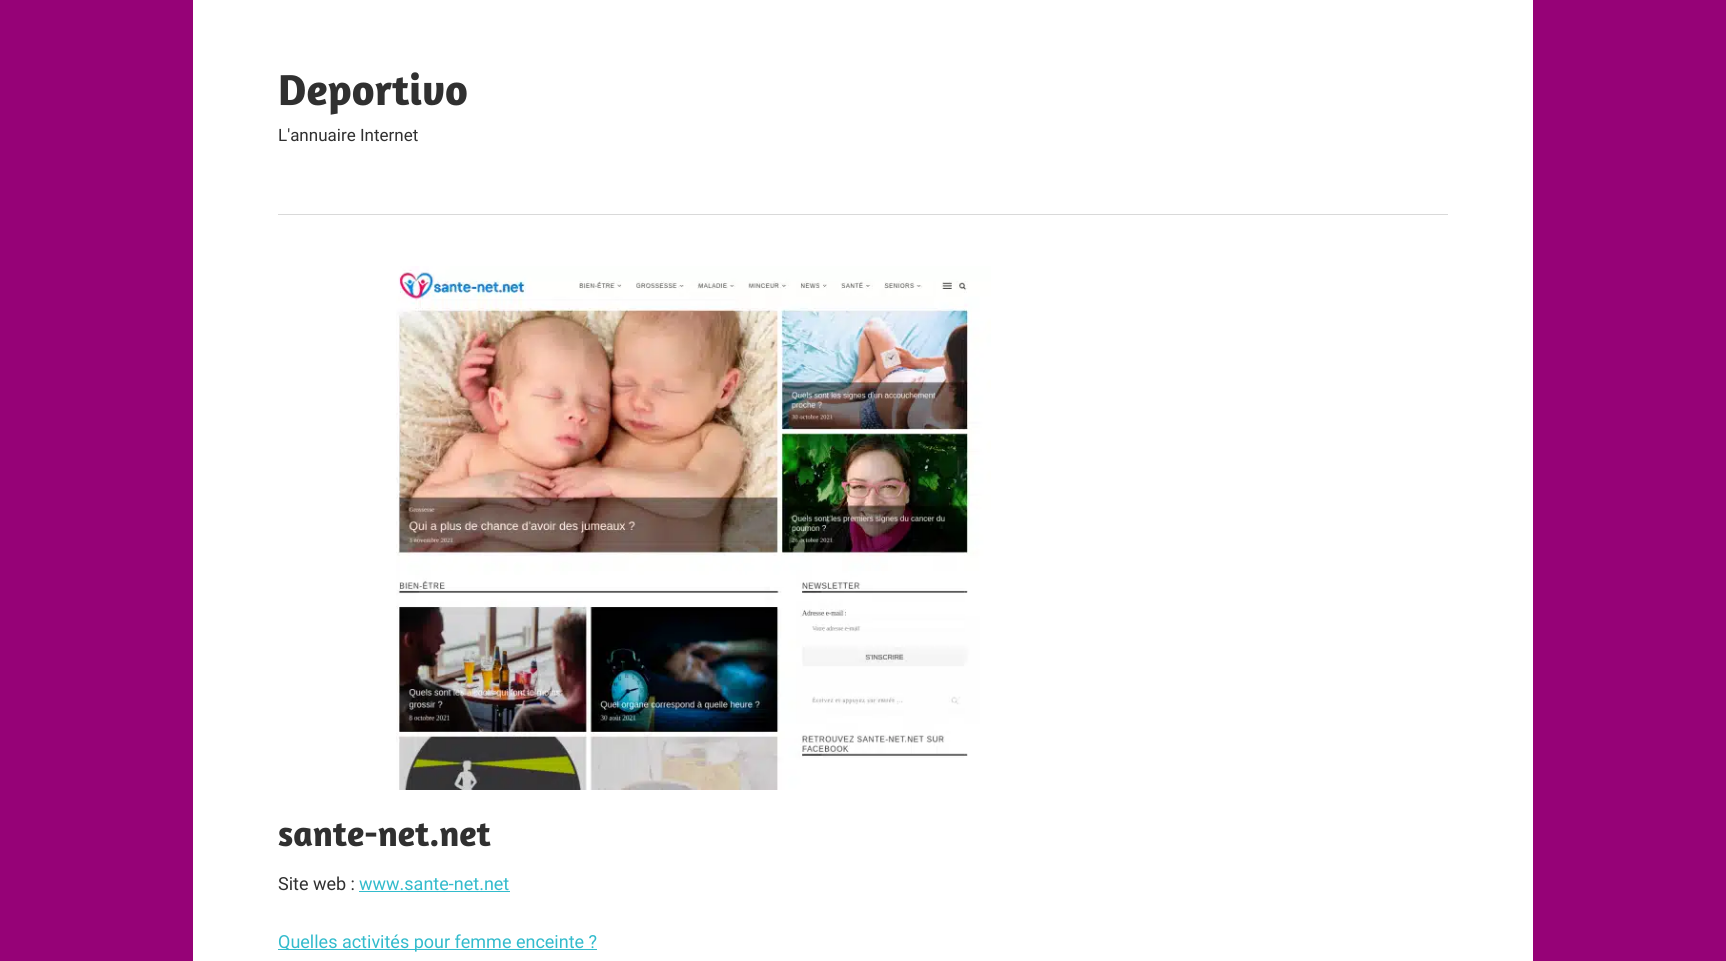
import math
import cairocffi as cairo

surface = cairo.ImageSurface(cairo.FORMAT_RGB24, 1726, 961)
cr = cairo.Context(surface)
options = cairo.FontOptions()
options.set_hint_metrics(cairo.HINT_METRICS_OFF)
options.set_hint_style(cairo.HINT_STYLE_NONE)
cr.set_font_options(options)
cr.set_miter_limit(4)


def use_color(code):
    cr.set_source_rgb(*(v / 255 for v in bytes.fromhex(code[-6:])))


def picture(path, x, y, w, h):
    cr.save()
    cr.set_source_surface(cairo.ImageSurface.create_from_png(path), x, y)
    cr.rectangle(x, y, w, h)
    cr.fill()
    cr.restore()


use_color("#960277")
cr.paint()
use_color("#ffffff")
cr.rectangle(193, 0, 1340, 961)
cr.fill()
cr.select_font_face("Amaranth", cairo.FONT_SLANT_NORMAL, cairo.FONT_WEIGHT_BOLD)
cr.set_font_size(44)
use_color("#303030")
cr.move_to(278, 105)
cr.show_text("Deportivo")
cr.select_font_face("Roboto")
cr.set_font_size(17)
cr.move_to(278, 141)
cr.show_text("L'annuaire Internet")
use_color("#d9d9d9")
cr.rectangle(278, 214, 1170, 1)
cr.fill()
picture("img1.png", 396, 266, 595, 524)
cr.select_font_face("Amaranth", cairo.FONT_SLANT_NORMAL, cairo.FONT_WEIGHT_BOLD)
cr.set_font_size(36)
use_color("#303030")
cr.move_to(278, 846)
cr.show_text("sante-net.net")
cr.select_font_face("Roboto")
cr.set_font_size(18)
cr.move_to(278, 890)
cr.show_text("Site web :")
use_color("#33bbcc")
cr.move_to(359, 890)
cr.show_text("www.sante-net.net")
cr.rectangle(359, 891, 151, 1)
cr.fill()
cr.rectangle(278, 949, 319, 1)
cr.fill()
cr.move_to(278, 948)
cr.show_text("Quelles activités pour femme enceinte ?")
surface.write_to_png("result.png")
